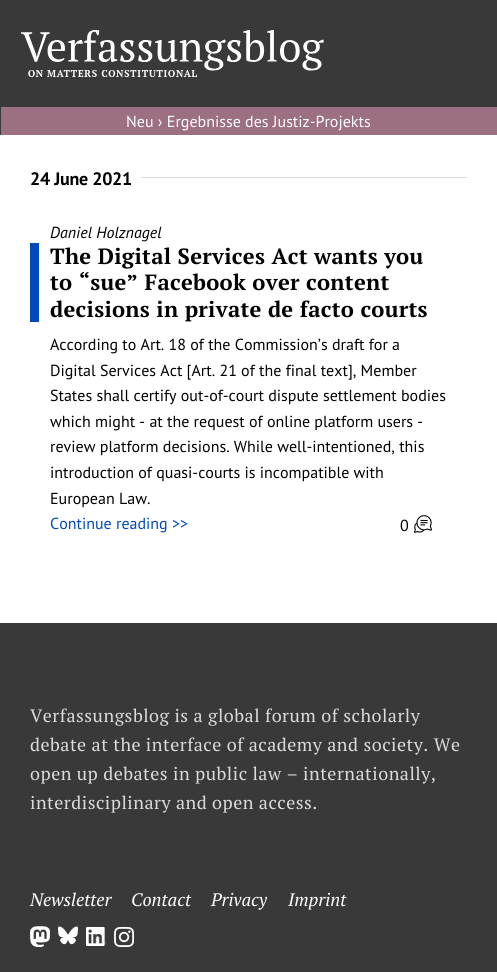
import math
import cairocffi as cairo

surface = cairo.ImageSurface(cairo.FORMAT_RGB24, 497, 972)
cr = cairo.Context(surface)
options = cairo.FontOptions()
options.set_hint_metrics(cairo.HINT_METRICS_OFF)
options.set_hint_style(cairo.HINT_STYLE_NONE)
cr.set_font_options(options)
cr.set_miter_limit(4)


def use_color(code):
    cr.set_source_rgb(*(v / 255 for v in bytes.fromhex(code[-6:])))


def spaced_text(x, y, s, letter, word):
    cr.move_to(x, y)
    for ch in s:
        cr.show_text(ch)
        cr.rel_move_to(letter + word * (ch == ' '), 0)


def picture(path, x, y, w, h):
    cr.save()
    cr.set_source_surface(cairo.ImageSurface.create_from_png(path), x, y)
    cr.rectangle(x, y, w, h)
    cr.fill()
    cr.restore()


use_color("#ffffff")
cr.paint()
use_color("#393939")
cr.rectangle(0, 0, 497, 135)
cr.fill()
picture("img1.png", 21, 30, 303, 47)
use_color("#9d6f83")
cr.rectangle(1, 107, 496, 28)
cr.fill()
cr.select_font_face("PT Sans")
cr.set_font_size(16)
use_color("#ffffff")
cr.move_to(126, 127)
cr.show_text("Neu › Ergebnisse des Justiz-Projekts")
cr.select_font_face("PT Sans", cairo.FONT_SLANT_NORMAL, cairo.FONT_WEIGHT_BOLD)
cr.set_font_size(18)
use_color("#000000")
spaced_text(30, 185, "24 June 2021", -0.25, 0)
use_color("#dbdbdb")
cr.rectangle(141, 177, 326, 1)
cr.fill()
cr.select_font_face("PT Sans", cairo.FONT_SLANT_ITALIC)
cr.set_font_size(16)
use_color("#000000")
cr.move_to(50, 238)
cr.show_text("Daniel Holznagel")
use_color("#0049b8")
cr.rectangle(30, 243, 9, 79)
cr.fill()
cr.select_font_face("PT Serif", cairo.FONT_SLANT_NORMAL, cairo.FONT_WEIGHT_BOLD)
cr.set_font_size(22)
use_color("#000000")
spaced_text(50, 264, "The Digital Services Act wants you", 0.3, 0)
spaced_text(50, 290, "to “sue” Facebook over content", 0.3, 0)
spaced_text(50, 317, "decisions in private de facto courts", 0.3, 0)
cr.select_font_face("PT Sans")
cr.set_font_size(16)
cr.move_to(50, 350)
cr.show_text("According to Art. 18 of the Commission’s draft for a")
cr.move_to(50, 376)
cr.show_text("Digital Services Act [Art. 21 of the final text], Member")
cr.move_to(50, 401)
cr.show_text("States shall certify out-of-court dispute settlement bodies")
cr.move_to(50, 427)
cr.show_text("which might - at the request of online platform users -")
cr.move_to(50, 452)
cr.show_text("review platform decisions. While well-intentioned, this")
cr.move_to(50, 478)
cr.show_text("introduction of quasi-courts is incompatible with")
cr.move_to(50, 504)
cr.show_text("European Law.")
use_color("#0049b8")
cr.move_to(50, 529)
cr.show_text("Continue reading >>")
use_color("#000000")
cr.move_to(400, 531)
cr.show_text("0")
picture("img2.png", 414, 515, 18, 18)
use_color("#393939")
cr.rectangle(0, 623, 497, 349)
cr.fill()
cr.select_font_face("PT Serif")
cr.set_font_size(18)
use_color("#dbdbdb")
spaced_text(30, 722, "Verfassungsblog is a global forum of scholarly", 0.5, 0)
spaced_text(30, 751, "debate at the interface of academy and society. We", 0.5, 0)
spaced_text(30, 780, "open up debates in public law – internationally,", 0.5, 0)
spaced_text(30, 809, "interdisciplinary and open access.", 0.5, 0)
cr.select_font_face("PT Serif", cairo.FONT_SLANT_ITALIC)
use_color("#ffffff")
cr.move_to(30, 906)
cr.show_text("Newsletter")
cr.move_to(131, 906)
cr.show_text("Contact")
cr.move_to(211, 906)
cr.show_text("Privacy")
cr.move_to(288, 906)
cr.show_text("Imprint")
picture("img3.png", 30, 926, 20, 21)
picture("img4.png", 58, 926, 20, 19)
picture("img5.png", 86, 927, 20, 19)
picture("img6.png", 114, 927, 20, 20)
surface.write_to_png("result.png")
